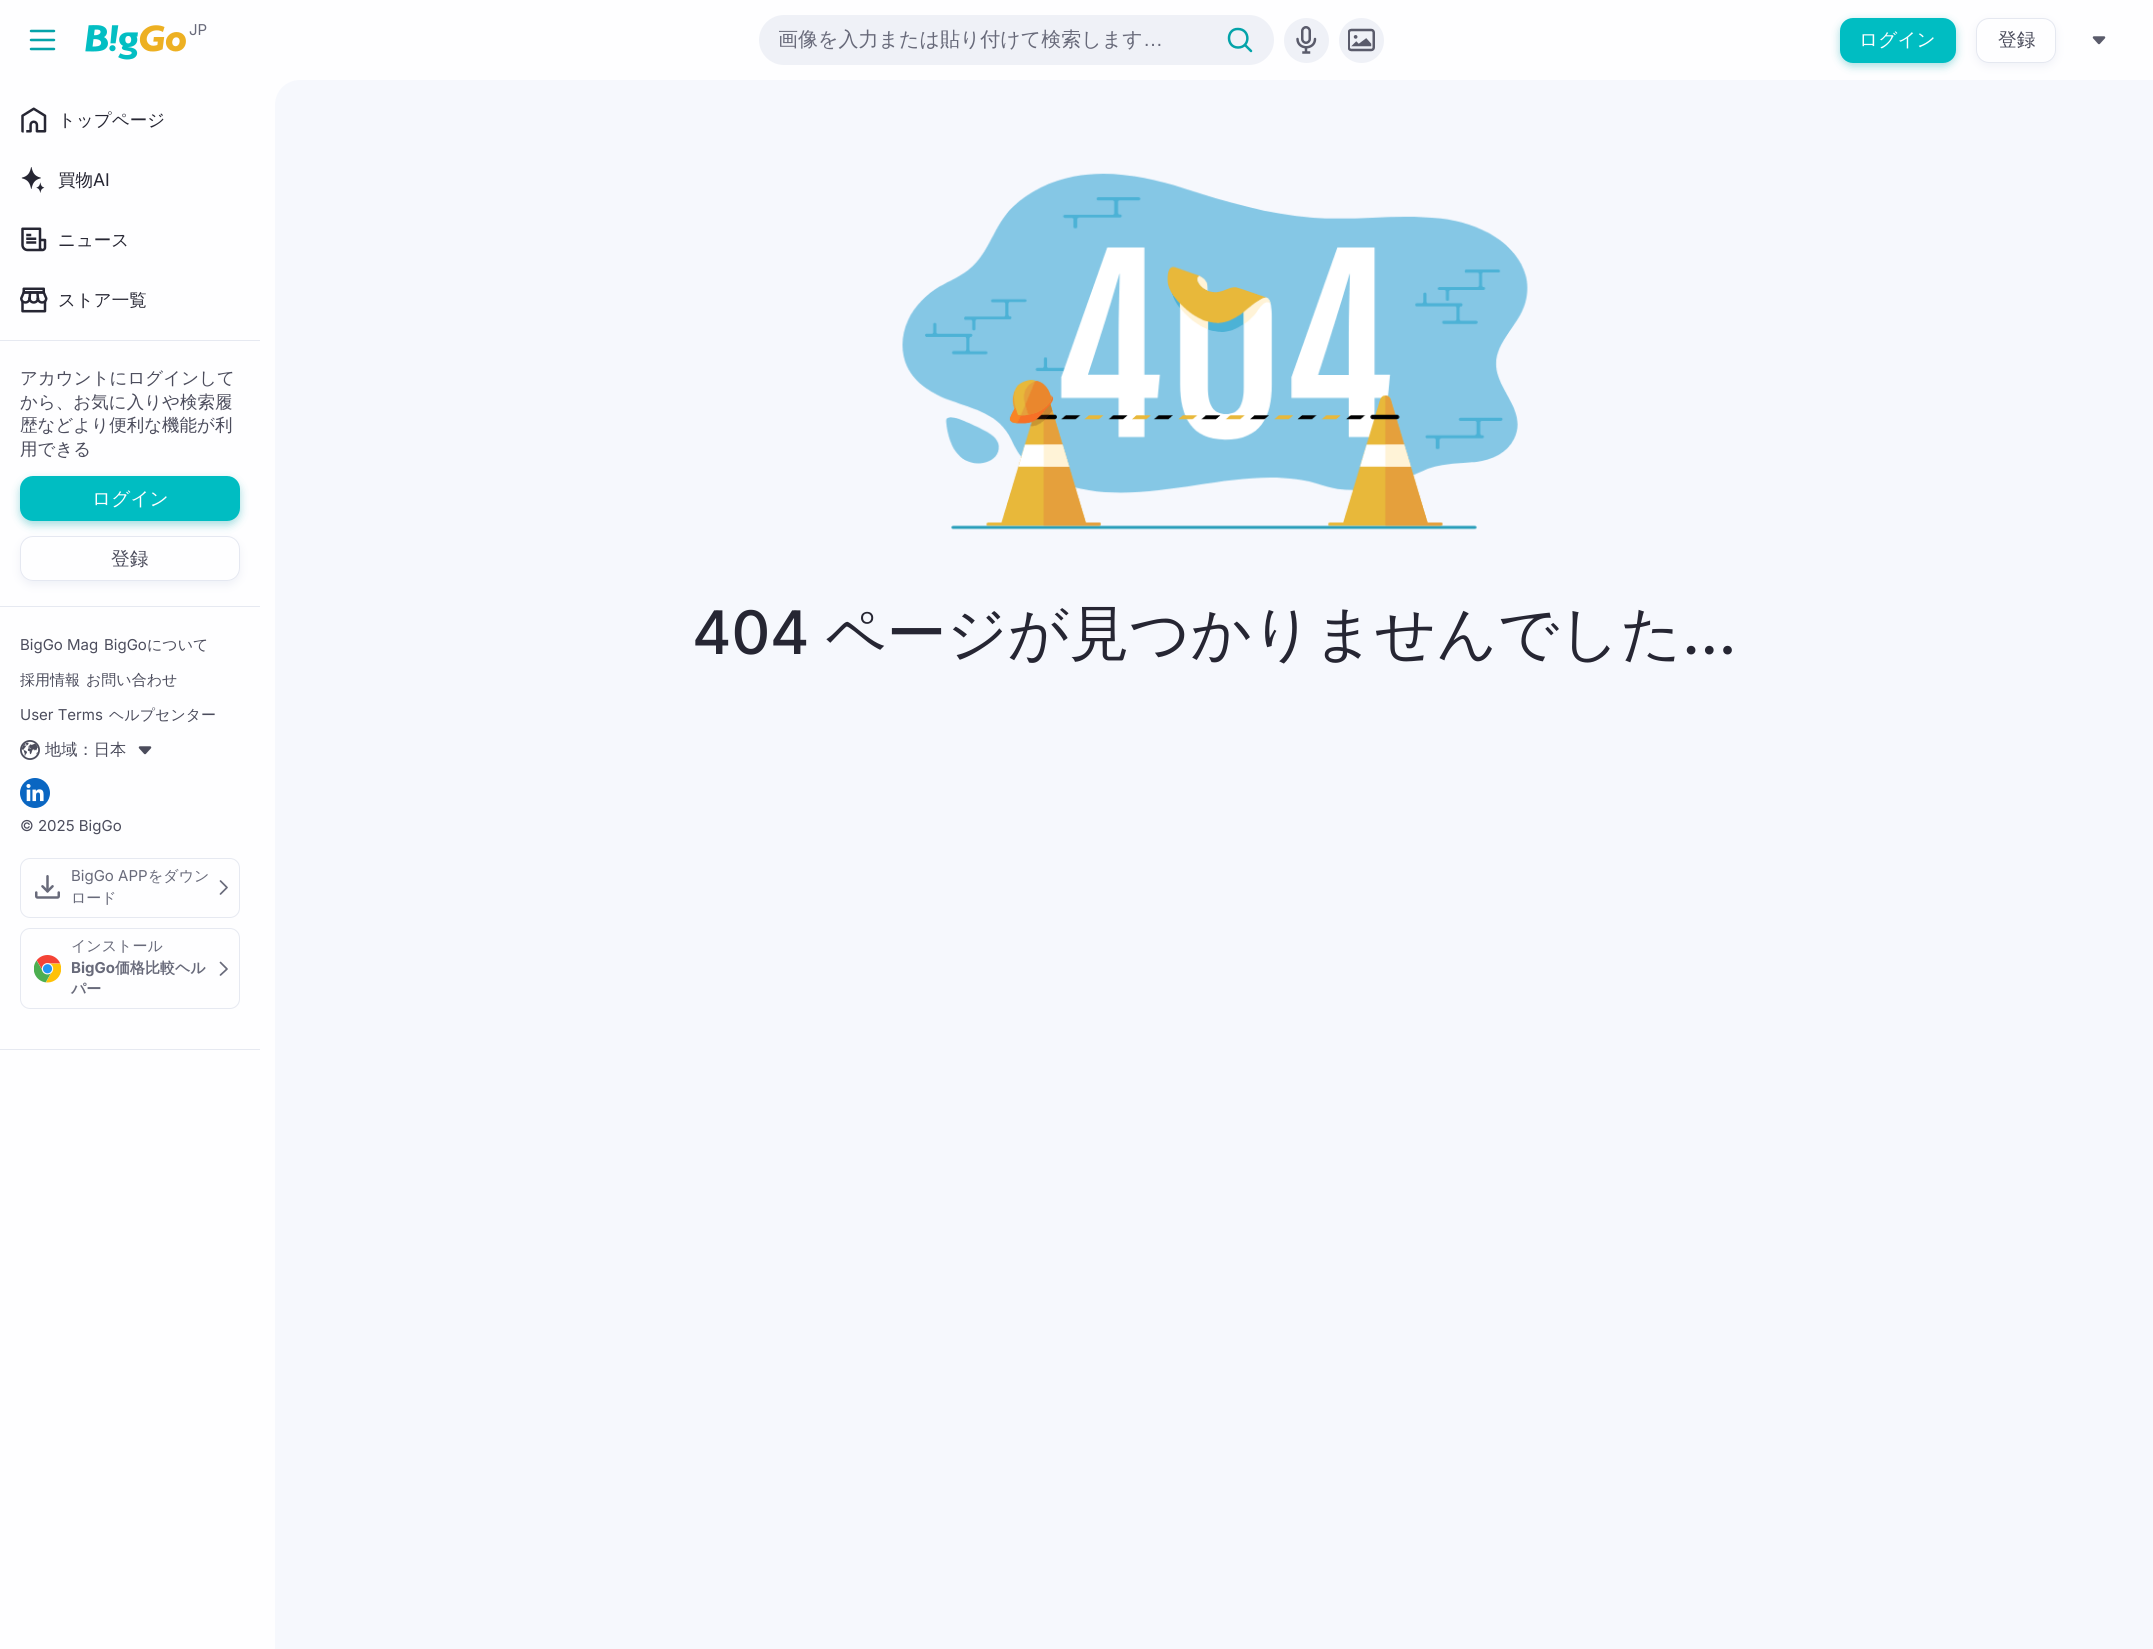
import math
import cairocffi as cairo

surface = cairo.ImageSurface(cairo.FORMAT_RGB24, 2153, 1649)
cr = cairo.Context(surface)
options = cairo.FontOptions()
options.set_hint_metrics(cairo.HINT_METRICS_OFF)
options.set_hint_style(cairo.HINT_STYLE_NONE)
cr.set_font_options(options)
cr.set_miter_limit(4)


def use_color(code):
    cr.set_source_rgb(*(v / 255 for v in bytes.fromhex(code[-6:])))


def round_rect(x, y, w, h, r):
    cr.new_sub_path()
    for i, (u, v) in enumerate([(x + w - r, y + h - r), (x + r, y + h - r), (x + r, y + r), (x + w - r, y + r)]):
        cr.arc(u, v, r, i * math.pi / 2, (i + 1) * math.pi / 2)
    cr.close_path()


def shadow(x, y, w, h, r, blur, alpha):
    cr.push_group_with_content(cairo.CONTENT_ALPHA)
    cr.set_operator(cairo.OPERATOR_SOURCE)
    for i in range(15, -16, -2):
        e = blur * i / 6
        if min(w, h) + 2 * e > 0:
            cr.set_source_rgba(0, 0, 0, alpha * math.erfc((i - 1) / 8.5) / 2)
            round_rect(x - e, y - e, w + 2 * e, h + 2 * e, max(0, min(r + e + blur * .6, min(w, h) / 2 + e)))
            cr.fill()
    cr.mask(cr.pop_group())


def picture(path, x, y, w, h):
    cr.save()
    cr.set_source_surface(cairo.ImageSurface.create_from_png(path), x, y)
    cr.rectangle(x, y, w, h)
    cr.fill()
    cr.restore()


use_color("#f6f8fd")
cr.paint()
use_color("#fefeff")
cr.rectangle(0, 0, 2153, 80)
cr.fill()
cr.new_path()
cr.move_to(31, 31)
cr.line_to(54, 31)
cr.move_to(31, 40)
cr.line_to(54, 40)
cr.move_to(31, 49)
cr.line_to(54, 49)
use_color("#03a3a9")
cr.set_line_width(2.5)
cr.set_line_cap(cairo.LINE_CAP_ROUND)
cr.set_line_join(cairo.LINE_JOIN_ROUND)
cr.stroke()
picture("img1.png", 85, 25, 101, 35)
cr.select_font_face("Inter")
cr.set_font_size(15)
use_color("#686a7a")
cr.move_to(189, 35)
cr.show_text("JP")
use_color("#eff1f7")
round_rect(759, 15, 515, 50, 25)
cr.fill()
cr.select_font_face("WenQuanYi Zen Hei Medium")
cr.set_font_size(20)
use_color("#686a7a")
cr.move_to(778, 46)
cr.show_text("画像を入力または貼り付けて検索します")
cr.select_font_face("Liberation Sans")
cr.move_to(1143, 46)
cr.show_text("…")
cr.new_path()
cr.move_to(1245, 45)
cr.line_to(1251, 51)
use_color("#03a3a9")
cr.set_line_join(cairo.LINE_JOIN_MITER)
cr.stroke()
cr.new_path()
cr.move_to(1238, 47.5)
cr.curve_to(1250.5, 47.5, 1250.5, 29, 1238, 29)
cr.curve_to(1226, 28.5, 1226, 47.5, 1238, 47.5)
cr.close_path()
cr.set_line_cap(cairo.LINE_CAP_BUTT)
cr.stroke()
use_color("#eff1f7")
cr.arc(1306.5, 40.5, 22.5, 0, 2 * math.pi)
cr.fill()
cr.new_path()
cr.move_to(1315, 39)
cr.curve_to(1315, 50, 1297.5, 50, 1297.5, 39)
use_color("#5a5b6b")
cr.set_line_cap(cairo.LINE_CAP_ROUND)
cr.stroke()
cr.new_path()
cr.move_to(1306, 47.5)
cr.line_to(1306, 52.5)
cr.move_to(1309, 52.5)
cr.line_to(1303.5, 52.5)
cr.set_line_cap(cairo.LINE_CAP_SQUARE)
cr.stroke()
round_rect(1302.25, 27.25, 7.5, 15.5, 3.75)
cr.set_line_cap(cairo.LINE_CAP_BUTT)
cr.stroke()
use_color("#eff1f7")
cr.arc(1361.5, 40.5, 22.5, 0, 2 * math.pi)
cr.fill()
picture("img2.png", 1348, 28, 27, 24)
use_color("#03a3a9")
shadow(1840, 21, 116, 45, 13, 4.5, 0.36)
use_color("#00bdc2")
round_rect(1840, 18, 116, 45, 13)
cr.fill()
cr.select_font_face("WenQuanYi Zen Hei Medium")
cr.set_font_size(18.75)
use_color("#fefeff")
cr.move_to(1859, 46)
cr.show_text("ログイン")
use_color("#cdd3e3")
shadow(1976, 21, 80, 45, 13, 4.5, 0.3)
use_color("#fefeff")
round_rect(1976, 18, 80, 45, 13)
cr.fill()
round_rect(1976.5, 18.5, 79, 44, 12.5)
cr.set_source_rgba(0.804, 0.827, 0.89, 0.5)
cr.set_line_width(1)
cr.stroke()
use_color("#4b4c5c")
cr.move_to(1998, 46)
cr.show_text("登録")
use_color("#5a5b6b")
cr.new_path()
cr.move_to(2104, 37.5)
cr.line_to(2094, 37.5)
cr.line_to(2099, 43)
cr.close_path()
cr.fill_preserve()
cr.set_line_width(2.5)
cr.set_line_cap(cairo.LINE_CAP_ROUND)
cr.set_line_join(cairo.LINE_JOIN_ROUND)
cr.stroke()
use_color("#fefeff")
cr.rectangle(0, 80, 275, 1569)
cr.fill()
use_color("#e6e9f1")
cr.rectangle(0, 340, 260, 1)
cr.fill()
picture("img3.png", 21, 107, 26, 26)
cr.set_font_size(17.5)
use_color("#262633")
cr.move_to(58, 126)
cr.show_text("トップページ")
picture("img4.png", 21, 167, 24, 26)
cr.move_to(58, 186)
cr.show_text("買物")
cr.select_font_face("Inter")
cr.move_to(93, 186)
cr.show_text("AI")
picture("img5.png", 21, 227, 26, 25)
cr.select_font_face("WenQuanYi Zen Hei Medium")
cr.move_to(58, 246)
cr.show_text("ニュース")
picture("img6.png", 20, 287, 28, 26)
cr.move_to(58, 306)
cr.show_text("ストア一覧")
use_color("#e6e9f1")
cr.rectangle(0, 606, 260, 1)
cr.fill()
use_color("#4b4c5c")
cr.move_to(20, 384)
cr.show_text("アカウントにログインして")
cr.move_to(20, 408)
cr.show_text("から、お気に入りや検索履")
cr.move_to(20, 431)
cr.show_text("歴などより便利な機能が利")
cr.move_to(20, 455)
cr.show_text("用できる")
use_color("#03a3a9")
shadow(20, 480, 220, 45, 13, 4.5, 0.36)
use_color("#00bdc2")
round_rect(20, 476, 220, 45, 13)
cr.fill()
cr.set_font_size(18.75)
use_color("#fefeff")
cr.move_to(92, 505)
cr.show_text("ログイン")
cr.save()
cr.set_fill_rule(cairo.FILL_RULE_EVEN_ODD)
cr.new_path()
cr.move_to(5, 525)
cr.line_to(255, 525)
cr.line_to(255, 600)
cr.line_to(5, 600)
cr.close_path()
cr.move_to(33, 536)
cr.line_to(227, 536)
cr.curve_to(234, 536, 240, 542, 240, 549)
cr.line_to(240, 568)
cr.curve_to(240, 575, 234, 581, 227, 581)
cr.line_to(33, 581)
cr.curve_to(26, 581, 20, 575, 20, 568)
cr.line_to(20, 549)
cr.curve_to(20, 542, 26, 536, 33, 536)
cr.close_path()
cr.clip()
use_color("#cdd3e3")
shadow(20, 540, 220, 45, 13, 4.5, 0.3)
cr.restore()
round_rect(20.5, 536.5, 219, 44, 12.5)
use_color("#e5e8f1")
cr.set_line_width(1)
cr.set_line_cap(cairo.LINE_CAP_BUTT)
cr.set_line_join(cairo.LINE_JOIN_MITER)
cr.stroke()
use_color("#4b4c5c")
cr.move_to(111, 565)
cr.show_text("登録")
use_color("#e6e9f1")
cr.rectangle(0, 1049, 260, 1)
cr.fill()
cr.select_font_face("Inter")
cr.set_font_size(15)
use_color("#4b4c5c")
cr.move_to(20, 650)
cr.show_text("BigGo Mag")
cr.move_to(104, 650)
cr.show_text("BigGo")
cr.select_font_face("WenQuanYi Zen Hei Medium")
cr.move_to(147, 650)
cr.show_text("について")
cr.move_to(20, 685)
cr.show_text("採用情報")
cr.move_to(86, 685)
cr.show_text("お問い合わせ")
cr.select_font_face("Inter")
cr.move_to(20, 720)
cr.show_text("User Terms")
cr.select_font_face("WenQuanYi Zen Hei Medium")
cr.move_to(109, 720)
cr.show_text("ヘルプセンター")
picture("img7.png", 20, 740, 20, 20)
cr.set_font_size(16.25)
cr.move_to(45, 755)
cr.show_text("地域：日本")
cr.new_path()
cr.move_to(150, 747.5)
cr.line_to(140, 747.5)
cr.line_to(145, 753)
cr.close_path()
cr.fill_preserve()
cr.set_line_width(2.5)
cr.set_line_cap(cairo.LINE_CAP_ROUND)
cr.set_line_join(cairo.LINE_JOIN_ROUND)
cr.stroke()
picture("img8.png", 20, 778, 30, 30)
cr.select_font_face("Inter")
cr.set_font_size(15)
cr.move_to(20, 831)
cr.show_text("© 2025 BigGo")
round_rect(20.5, 858.5, 219, 59, 9.5)
use_color("#e6e9f1")
cr.set_line_width(1)
cr.set_line_cap(cairo.LINE_CAP_BUTT)
cr.set_line_join(cairo.LINE_JOIN_MITER)
cr.stroke()
picture("img9.png", 35, 875, 25, 24)
use_color("#686a7a")
cr.move_to(71, 881)
cr.show_text("BigGo APP")
cr.select_font_face("WenQuanYi Zen Hei Medium")
cr.move_to(148, 881)
cr.show_text("をダウン")
cr.move_to(71, 903)
cr.show_text("ロード")
cr.new_path()
cr.move_to(220.5, 881)
cr.line_to(227, 887.5)
cr.line_to(220.5, 894)
cr.set_line_width(1.7)
cr.set_line_cap(cairo.LINE_CAP_ROUND)
cr.set_line_join(cairo.LINE_JOIN_ROUND)
cr.stroke()
round_rect(20.5, 928.5, 219, 80, 9.5)
use_color("#e6e9f1")
cr.set_line_width(1)
cr.set_line_cap(cairo.LINE_CAP_BUTT)
cr.set_line_join(cairo.LINE_JOIN_MITER)
cr.stroke()
picture("img10.png", 34, 955, 27, 28)
use_color("#686a7a")
cr.move_to(71, 951)
cr.show_text("インストール")
cr.select_font_face("Inter", cairo.FONT_SLANT_NORMAL, cairo.FONT_WEIGHT_BOLD)
cr.move_to(71, 973)
cr.show_text("BigGo")
cr.select_font_face("WenQuanYi Zen Hei", cairo.FONT_SLANT_NORMAL, cairo.FONT_WEIGHT_BOLD)
cr.move_to(115, 973)
cr.show_text("価格比較ヘル")
cr.move_to(71, 994)
cr.show_text("パー")
cr.new_path()
cr.move_to(220.5, 962.5)
cr.line_to(227, 969)
cr.line_to(220.5, 975)
cr.set_line_width(1.7)
cr.set_line_cap(cairo.LINE_CAP_ROUND)
cr.set_line_join(cairo.LINE_JOIN_ROUND)
cr.stroke()
use_color("#fefeff")
cr.new_path()
cr.move_to(300, 80)
cr.line_to(275, 80)
cr.line_to(275, 105)
cr.curve_to(275, 91, 286, 80, 300, 80)
cr.close_path()
cr.fill()
picture("img11.png", 902, 173, 626, 357)
cr.select_font_face("Inter Medium")
cr.set_font_size(60)
use_color("#262633")
cr.move_to(692, 654)
cr.show_text("404")
cr.select_font_face("WenQuanYi Zen Hei Medium")
cr.move_to(825, 654)
cr.show_text("ページが見つかりませんでした")
cr.select_font_face("Inter Medium")
cr.move_to(1682, 654)
cr.show_text("…")
surface.write_to_png("result.png")
